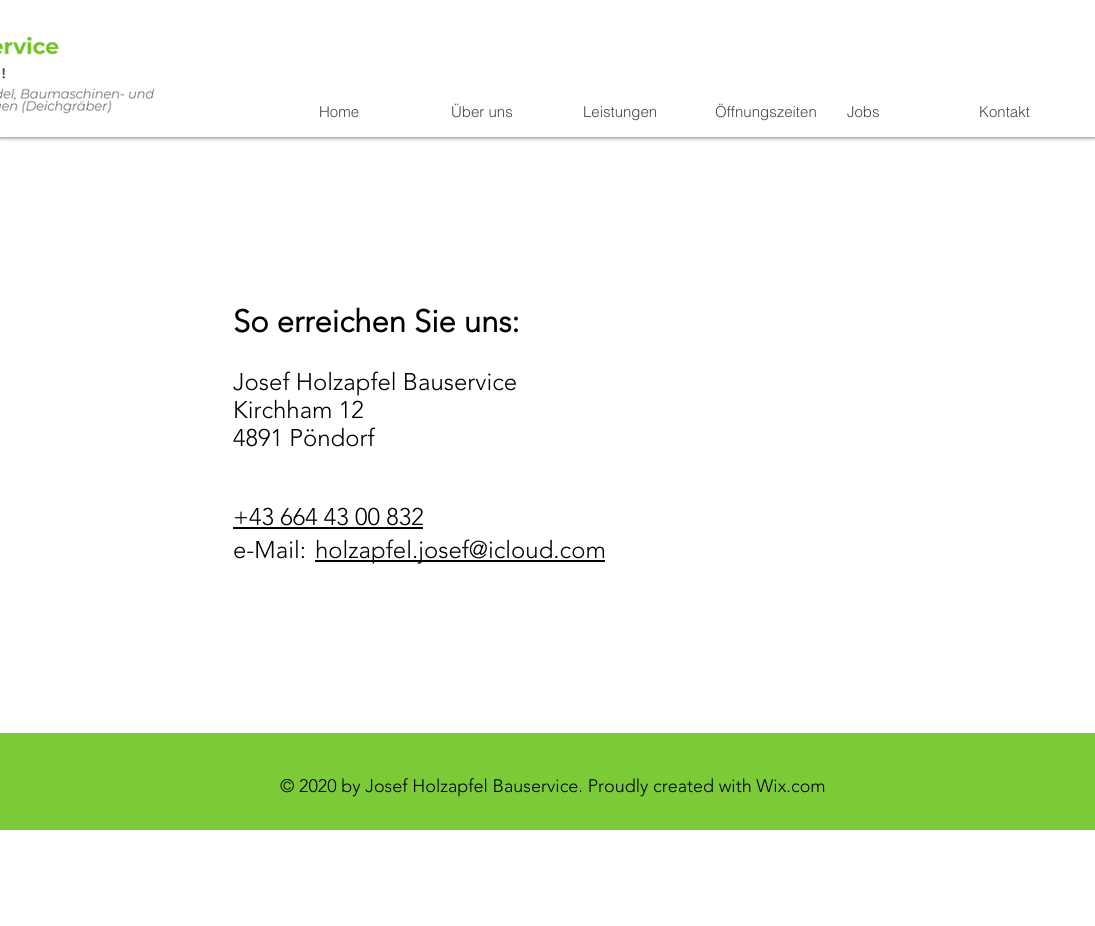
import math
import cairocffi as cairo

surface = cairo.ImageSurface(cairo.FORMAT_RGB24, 1095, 926)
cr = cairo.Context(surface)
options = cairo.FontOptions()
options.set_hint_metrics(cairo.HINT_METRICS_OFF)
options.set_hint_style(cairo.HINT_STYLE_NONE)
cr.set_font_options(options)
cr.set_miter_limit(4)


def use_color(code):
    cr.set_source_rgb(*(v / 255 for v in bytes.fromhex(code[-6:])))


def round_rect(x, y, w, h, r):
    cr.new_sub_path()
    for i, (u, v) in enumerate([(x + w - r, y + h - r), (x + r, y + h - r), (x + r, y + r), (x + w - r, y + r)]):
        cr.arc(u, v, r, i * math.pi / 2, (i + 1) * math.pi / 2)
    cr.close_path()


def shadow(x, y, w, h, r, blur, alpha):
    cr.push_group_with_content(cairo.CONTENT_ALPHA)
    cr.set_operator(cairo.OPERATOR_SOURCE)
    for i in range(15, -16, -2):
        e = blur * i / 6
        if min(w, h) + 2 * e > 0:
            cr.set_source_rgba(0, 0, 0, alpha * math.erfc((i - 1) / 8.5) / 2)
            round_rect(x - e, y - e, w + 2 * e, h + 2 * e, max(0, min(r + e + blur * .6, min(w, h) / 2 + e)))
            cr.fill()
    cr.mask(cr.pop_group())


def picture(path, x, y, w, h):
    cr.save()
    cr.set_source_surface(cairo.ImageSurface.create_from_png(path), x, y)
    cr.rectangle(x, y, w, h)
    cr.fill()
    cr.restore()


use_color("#ffffff")
cr.paint()
cr.save()
cr.rectangle(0, 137, 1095, 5)
cr.clip()
use_color("#000000")
shadow(0, 0, 1095, 137, 0, 2.5, 0.7)
cr.restore()
picture("img1.png", 0, 36, 154, 78)
cr.select_font_face("helvetica Light")
cr.set_font_size(15)
use_color("#444444")
cr.move_to(319, 117)
cr.show_text("Home")
cr.move_to(451, 117)
cr.show_text("Über uns")
cr.move_to(583, 117)
cr.show_text("Leistungen")
cr.move_to(715, 117)
cr.show_text("Öffnungszeiten")
cr.move_to(847, 117)
cr.show_text("Jobs")
cr.move_to(979, 117)
cr.show_text("Kontakt")
cr.select_font_face("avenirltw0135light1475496", cairo.FONT_SLANT_NORMAL, cairo.FONT_WEIGHT_BOLD)
cr.set_font_size(31)
use_color("#000000")
cr.move_to(233, 332)
cr.show_text("So erreichen Sie uns:")
cr.select_font_face("avenirltw0135light1475496 Light")
cr.set_font_size(24)
cr.move_to(233, 390)
cr.show_text("Josef Holzapfel Bauservice")
cr.move_to(233, 418)
cr.show_text("Kirchham 12")
cr.move_to(233, 446)
cr.show_text("4891 Pöndorf")
cr.move_to(233, 558)
cr.show_text("e-Mail:")
cr.move_to(233, 525)
cr.show_text("+43 664 43 00 832")
cr.rectangle(233, 527, 190, 2)
cr.fill()
cr.rectangle(315, 560, 290, 2)
cr.fill()
cr.move_to(315, 558)
cr.show_text("holzapfel.josef@icloud.com")
use_color("#7dca38")
cr.rectangle(0, 733, 1095, 97)
cr.fill()
cr.set_font_size(18)
use_color("#000000")
cr.move_to(280, 792)
cr.show_text("© 2020 by Josef Holzapfel Bauservice. Proudly created with Wix.com")
surface.write_to_png("result.png")
